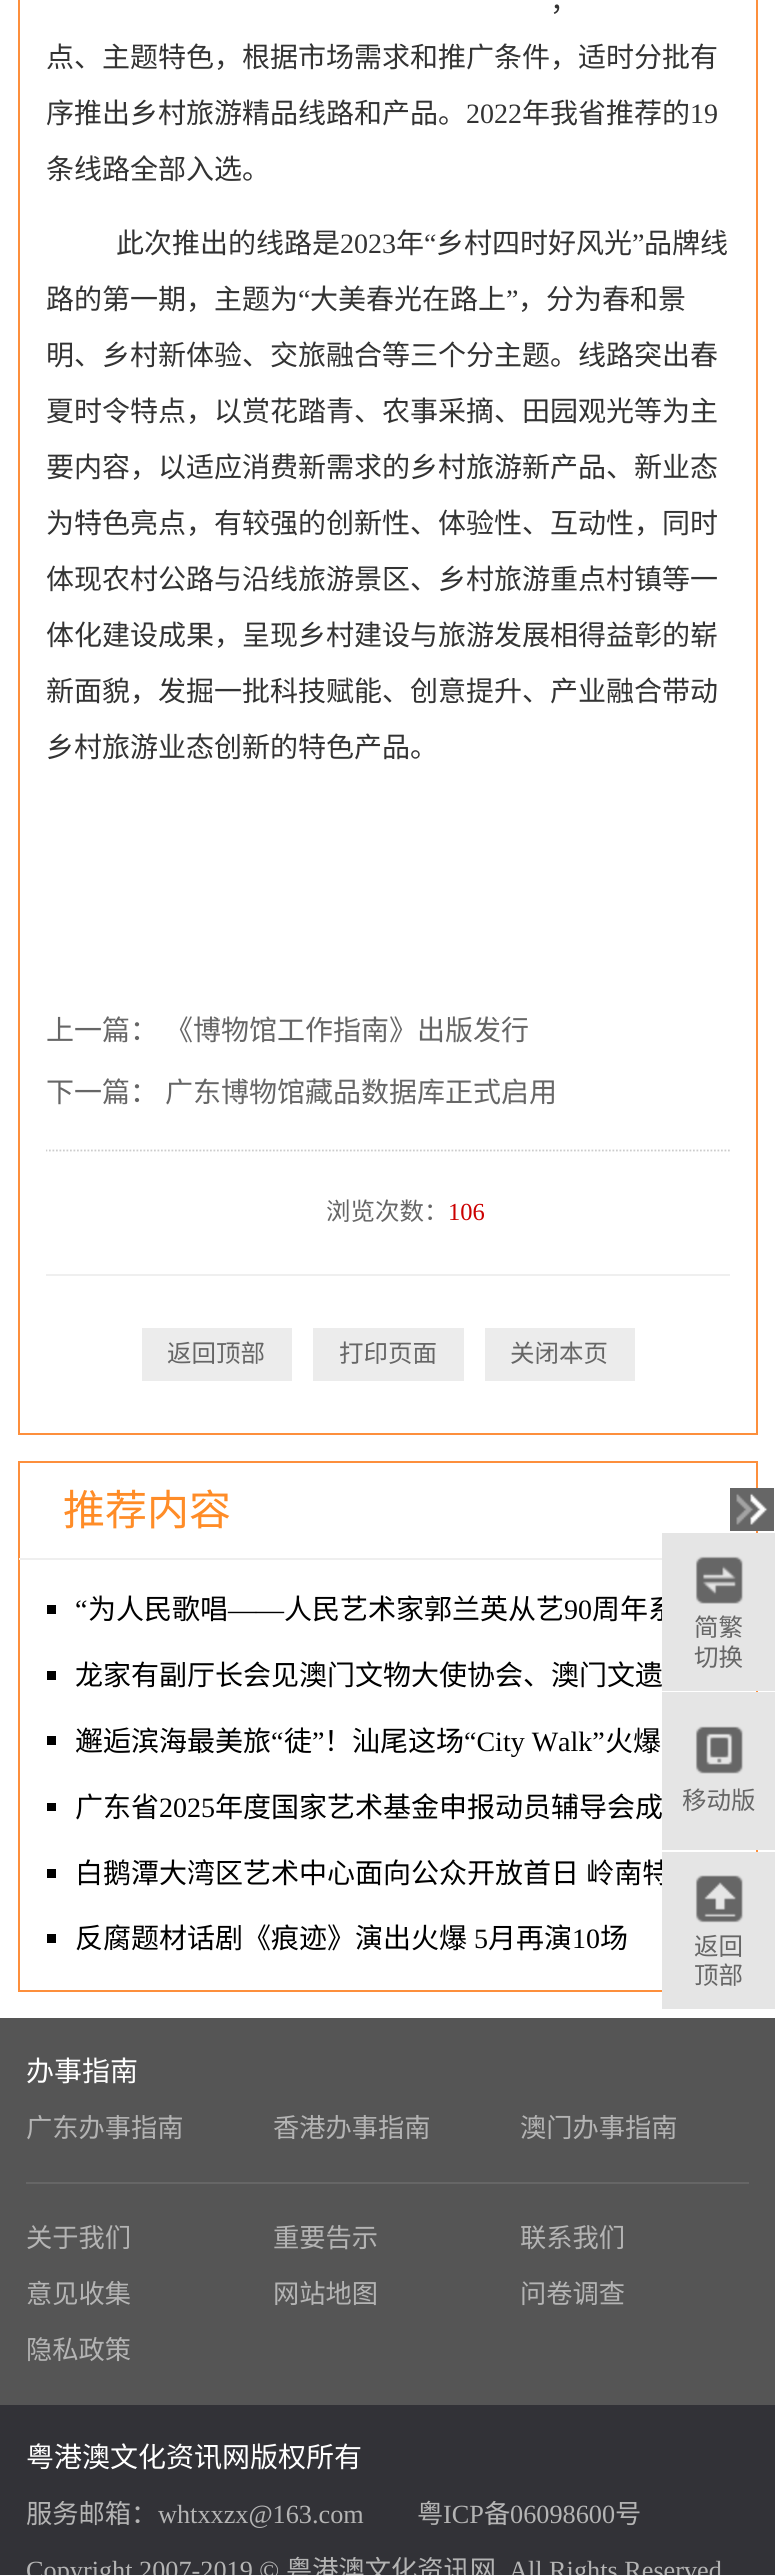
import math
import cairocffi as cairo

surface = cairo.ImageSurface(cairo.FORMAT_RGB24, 775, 2575)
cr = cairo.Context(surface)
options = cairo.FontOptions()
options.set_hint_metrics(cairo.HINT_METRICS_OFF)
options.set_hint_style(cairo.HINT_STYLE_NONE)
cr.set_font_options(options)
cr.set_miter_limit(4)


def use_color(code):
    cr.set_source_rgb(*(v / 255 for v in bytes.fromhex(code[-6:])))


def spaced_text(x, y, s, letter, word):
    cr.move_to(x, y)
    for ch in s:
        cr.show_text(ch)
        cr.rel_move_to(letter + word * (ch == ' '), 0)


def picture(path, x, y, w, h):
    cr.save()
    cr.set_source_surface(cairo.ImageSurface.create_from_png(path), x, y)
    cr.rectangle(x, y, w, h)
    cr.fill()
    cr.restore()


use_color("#ffffff")
cr.paint()
cr.rectangle(19, -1, 738, 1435)
use_color("#fd8f3c")
cr.stroke()
cr.select_font_face("Noto Sans CJK SC")
cr.set_font_size(28)
use_color("#333333")
cr.move_to(550, 11)
cr.show_text("，")
cr.move_to(46, 67)
cr.show_text("点、主题特色，根据市场需求和推广条件，适时分批有")
cr.move_to(46, 123)
cr.show_text("序推出乡村旅游精品线路和产品。")
cr.select_font_face("Liberation Serif")
cr.move_to(466, 123)
cr.show_text("2022")
cr.select_font_face("Noto Sans CJK SC")
cr.move_to(522, 123)
cr.show_text("年我省推荐的")
cr.select_font_face("Liberation Serif")
cr.move_to(690, 123)
cr.show_text("19")
cr.select_font_face("Noto Sans CJK SC")
cr.move_to(46, 179)
cr.show_text("条线路全部入选。")
cr.move_to(116, 253)
cr.show_text("此次推出的线路是")
cr.select_font_face("Liberation Serif")
cr.move_to(340, 253)
cr.show_text("2023")
cr.select_font_face("Noto Sans CJK SC")
cr.move_to(396, 253)
cr.show_text("年")
cr.select_font_face("Liberation Serif")
cr.move_to(424, 253)
cr.show_text("“")
cr.select_font_face("Noto Sans CJK SC")
cr.move_to(436, 253)
cr.show_text("乡村四时好风光")
cr.select_font_face("Liberation Serif")
cr.move_to(632, 253)
cr.show_text("”")
cr.select_font_face("Noto Sans CJK SC")
cr.move_to(644, 253)
cr.show_text("品牌线")
cr.move_to(46, 309)
cr.show_text("路的第一期，主题为")
cr.select_font_face("Liberation Serif")
cr.move_to(298, 309)
cr.show_text("“")
cr.select_font_face("Noto Sans CJK SC")
cr.move_to(310, 309)
cr.show_text("大美春光在路上")
cr.select_font_face("Liberation Serif")
cr.move_to(506, 309)
cr.show_text("”")
cr.select_font_face("Noto Sans CJK SC")
cr.move_to(518, 309)
cr.show_text("，分为春和景")
cr.move_to(46, 365)
cr.show_text("明、乡村新体验、交旅融合等三个分主题。线路突出春")
cr.move_to(46, 421)
cr.show_text("夏时令特点，以赏花踏青、农事采摘、田园观光等为主")
cr.move_to(46, 477)
cr.show_text("要内容，以适应消费新需求的乡村旅游新产品、新业态")
cr.move_to(46, 533)
cr.show_text("为特色亮点，有较强的创新性、体验性、互动性，同时")
cr.move_to(46, 589)
cr.show_text("体现农村公路与沿线旅游景区、乡村旅游重点村镇等一")
cr.move_to(46, 645)
cr.show_text("体化建设成果，呈现乡村建设与旅游发展相得益彰的崭")
cr.move_to(46, 701)
cr.show_text("新面貌，发掘一批科技赋能、创意提升、产业融合带动")
cr.move_to(46, 757)
cr.show_text("乡村旅游业态创新的特色产品。")
use_color("#666666")
cr.move_to(46, 1040)
cr.show_text("上一篇：")
cr.move_to(165, 1040)
cr.show_text("《博物馆工作指南》出版发行")
cr.move_to(46, 1102)
cr.show_text("下一篇：")
cr.move_to(165, 1102)
cr.show_text("广东博物馆藏品数据库正式启用")
cr.save()
cr.rectangle(46, 0, 684, 1407)
cr.clip()
cr.new_path()
cr.move_to(45.5, 1150.5)
cr.line_to(730, 1150.5)
use_color("#cccccc")
cr.set_line_width(1.8)
cr.set_dash([1.75, 1.75])
cr.stroke()
cr.restore()
cr.set_font_size(24.5)
cr.move_to(326, 1220)
cr.show_text("浏览次数：")
cr.select_font_face("Liberation Serif")
use_color("#cc0000")
cr.move_to(448, 1220)
cr.show_text("106")
use_color("#efefef")
cr.rectangle(46, 1274, 684, 2)
cr.fill()
use_color("#ececec")
cr.rectangle(142, 1328, 150, 53)
cr.fill()
cr.select_font_face("Noto Sans CJK SC")
use_color("#666666")
cr.move_to(167, 1362)
cr.show_text("返回顶部")
use_color("#ececec")
cr.rectangle(313, 1328, 151, 53)
cr.fill()
use_color("#666666")
cr.move_to(339, 1362)
cr.show_text("打印页面")
use_color("#ececec")
cr.rectangle(485, 1328, 150, 53)
cr.fill()
use_color("#666666")
cr.move_to(510, 1362)
cr.show_text("关闭本页")
cr.rectangle(19, 1462, 738, 529)
use_color("#fd8f3c")
cr.stroke()
use_color("#efefef")
cr.rectangle(19, 1558, 643, 2)
cr.fill()
cr.set_font_size(42)
use_color("#ff8c27")
cr.move_to(63, 1525)
cr.show_text("推荐内容")
use_color("#000000")
cr.rectangle(47, 1605, 9, 9)
cr.fill()
cr.select_font_face("Liberation Serif")
cr.set_font_size(28)
cr.move_to(75, 1619)
cr.show_text("“")
cr.select_font_face("Noto Sans CJK SC")
cr.move_to(88, 1619)
cr.show_text("为人民歌唱")
cr.select_font_face("Liberation Serif")
cr.move_to(228, 1619)
cr.show_text("——")
cr.select_font_face("Noto Sans CJK SC")
cr.move_to(284, 1619)
cr.show_text("人民艺术家郭兰英从艺")
cr.select_font_face("Liberation Serif")
cr.move_to(564, 1619)
cr.show_text("90")
cr.select_font_face("Noto Sans CJK SC")
cr.move_to(592, 1619)
cr.show_text("周年系")
cr.rectangle(47, 1671, 9, 9)
cr.fill()
cr.move_to(75, 1685)
cr.show_text("龙家有副厅长会见澳门文物大使协会、澳门文遗")
cr.rectangle(47, 1736, 9, 9)
cr.fill()
cr.move_to(75, 1751)
cr.show_text("邂逅滨海最美旅")
cr.select_font_face("Liberation Serif")
cr.move_to(271, 1751)
cr.show_text("“")
cr.select_font_face("Noto Sans CJK SC")
cr.move_to(284, 1751)
cr.show_text("徒")
cr.select_font_face("Liberation Serif")
cr.move_to(312, 1751)
cr.show_text("”")
cr.select_font_face("Noto Sans CJK SC")
cr.move_to(324, 1751)
cr.show_text("！汕尾这场")
cr.select_font_face("Liberation Serif")
cr.move_to(464, 1751)
cr.show_text("“City Walk”")
cr.select_font_face("Noto Sans CJK SC")
cr.move_to(605, 1751)
cr.show_text("火爆")
cr.rectangle(47, 1803, 9, 8)
cr.fill()
cr.move_to(75, 1817)
cr.show_text("广东省")
cr.select_font_face("Liberation Serif")
cr.move_to(159, 1817)
cr.show_text("2025")
cr.select_font_face("Noto Sans CJK SC")
cr.move_to(215, 1817)
cr.show_text("年度国家艺术基金申报动员辅导会成")
cr.rectangle(47, 1869, 9, 9)
cr.fill()
spaced_text(75, 1883, "白鹅潭大湾区艺术中心面向公众开放首日 岭南特", 0, 1)
cr.rectangle(47, 1934, 9, 9)
cr.fill()
cr.move_to(75, 1948)
cr.show_text("反腐题材话剧《痕迹》演出火爆")
cr.select_font_face("Liberation Serif")
cr.move_to(474, 1948)
cr.show_text("5")
cr.select_font_face("Noto Sans CJK SC")
cr.move_to(488, 1948)
cr.show_text("月再演")
cr.select_font_face("Liberation Serif")
cr.move_to(572, 1948)
cr.show_text("10")
cr.select_font_face("Noto Sans CJK SC")
cr.move_to(600, 1948)
cr.show_text("场")
use_color("#666666")
cr.rectangle(730, 1488, 44, 43)
cr.fill()
picture("img1.png", 736, 1493, 32, 32)
use_color("#e5e5e5")
cr.rectangle(662, 1533, 113, 158)
cr.fill()
picture("img2.png", 695, 1556, 49, 48)
cr.set_font_size(24.5)
use_color("#666666")
cr.move_to(694, 1636)
cr.show_text("简繁")
cr.move_to(694, 1666)
cr.show_text("切换")
use_color("#e5e5e5")
cr.rectangle(662, 1692, 113, 158)
cr.fill()
picture("img3.png", 695, 1726, 49, 48)
use_color("#666666")
cr.move_to(682, 1809)
cr.show_text("移动版")
use_color("#e5e5e5")
cr.rectangle(662, 1852, 113, 157)
cr.fill()
picture("img4.png", 695, 1875, 49, 48)
use_color("#666666")
cr.move_to(694, 1955)
cr.show_text("返回")
cr.move_to(694, 1984)
cr.show_text("顶部")
use_color("#555555")
cr.rectangle(0, 2018, 775, 387)
cr.fill()
cr.set_font_size(28)
use_color("#ffffff")
cr.move_to(26, 2081)
cr.show_text("办事指南")
cr.set_font_size(26.25)
use_color("#b4b4b4")
cr.move_to(26, 2137)
cr.show_text("广东办事指南")
cr.move_to(273, 2137)
cr.show_text("香港办事指南")
cr.move_to(520, 2137)
cr.show_text("澳门办事指南")
use_color("#666666")
cr.rectangle(26, 2182, 723, 2)
cr.fill()
use_color("#b4b4b4")
cr.move_to(26, 2247)
cr.show_text("关于我们")
cr.move_to(273, 2247)
cr.show_text("重要告示")
cr.move_to(520, 2247)
cr.show_text("联系我们")
cr.move_to(26, 2303)
cr.show_text("意见收集")
cr.move_to(273, 2303)
cr.show_text("网站地图")
cr.move_to(520, 2303)
cr.show_text("问卷调查")
cr.move_to(26, 2359)
cr.show_text("隐私政策")
use_color("#323237")
cr.rectangle(0, 2405, 775, 170)
cr.fill()
cr.set_font_size(28)
use_color("#ffffff")
cr.move_to(26, 2467)
cr.show_text("粤港澳文化资讯网版权所有")
cr.set_font_size(26.25)
use_color("#b4b4b4")
cr.move_to(26, 2523)
cr.show_text("服务邮箱：")
cr.select_font_face("Liberation Serif")
cr.move_to(158, 2523)
cr.show_text("whtxxzx@163.com")
cr.select_font_face("Noto Sans CJK SC")
cr.move_to(417, 2523)
cr.show_text("粤")
cr.select_font_face("Liberation Serif")
cr.move_to(443, 2523)
cr.show_text("ICP")
cr.select_font_face("Noto Sans CJK SC")
cr.move_to(484, 2523)
cr.show_text("备")
cr.select_font_face("Liberation Serif")
cr.move_to(510, 2523)
cr.show_text("06098600")
cr.select_font_face("Noto Sans CJK SC")
cr.move_to(615, 2523)
cr.show_text("号")
cr.select_font_face("Liberation Serif")
cr.move_to(26, 2579)
cr.show_text("Copyright 2007-2019 ©")
cr.select_font_face("Noto Sans CJK SC")
cr.move_to(286, 2579)
cr.show_text("粤港澳文化资讯网")
cr.select_font_face("Liberation Serif")
cr.move_to(509, 2579)
cr.show_text("All Rights Reserved")
surface.write_to_png("result.png")
